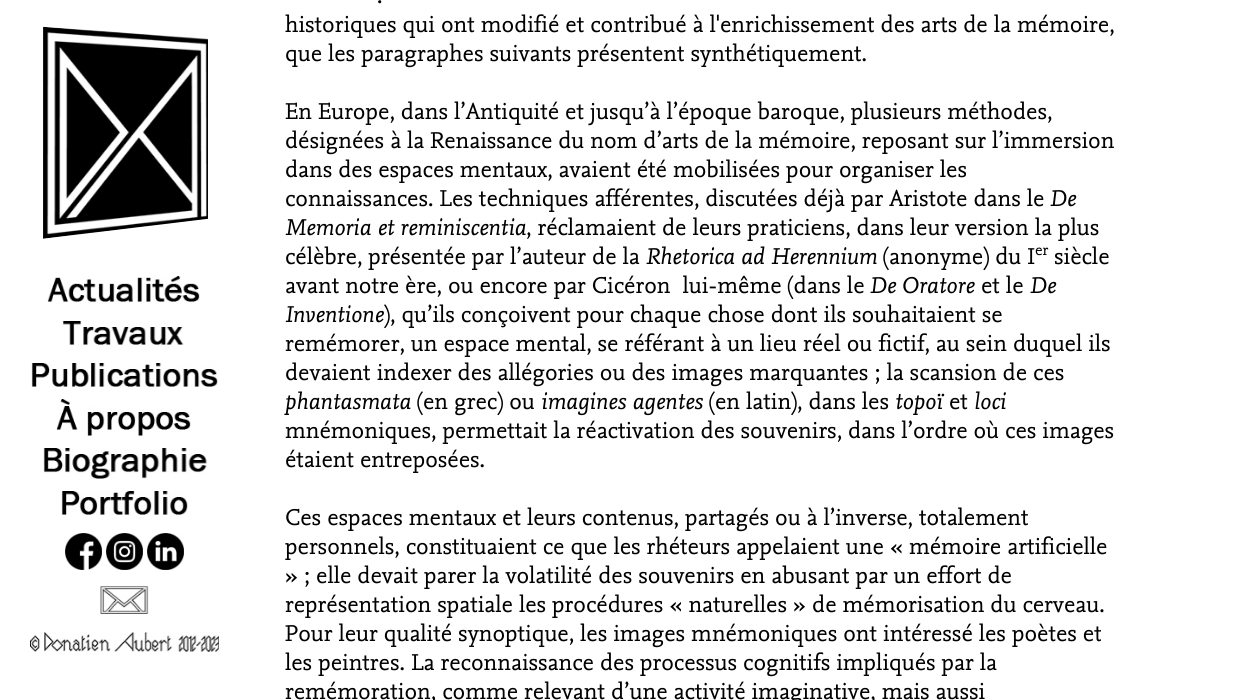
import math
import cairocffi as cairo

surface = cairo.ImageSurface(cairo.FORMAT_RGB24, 1250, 700)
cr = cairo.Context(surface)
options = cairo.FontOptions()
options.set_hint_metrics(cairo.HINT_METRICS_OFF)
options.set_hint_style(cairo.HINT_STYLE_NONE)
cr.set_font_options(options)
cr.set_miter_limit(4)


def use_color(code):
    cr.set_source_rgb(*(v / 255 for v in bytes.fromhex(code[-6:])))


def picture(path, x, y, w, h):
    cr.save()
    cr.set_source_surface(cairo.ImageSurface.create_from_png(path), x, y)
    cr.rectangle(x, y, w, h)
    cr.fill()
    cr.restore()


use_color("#ffffff")
cr.paint()
picture("img1.png", 43, 26, 165, 213)
use_color("#ffffff")
cr.new_path()
cr.move_to(19, 2)
cr.line_to(235, 17)
cr.line_to(234, 40)
cr.line_to(17, 25)
cr.close_path()
cr.fill()
cr.new_path()
cr.move_to(16, 242)
cr.line_to(231, 216)
cr.line_to(234, 237)
cr.line_to(19, 264)
cr.close_path()
cr.fill()
picture("img2.png", 47, 276, 153, 26)
picture("img3.png", 62, 321, 122, 24)
picture("img4.png", 31, 363, 187, 24)
picture("img5.png", 56, 399, 135, 37)
picture("img6.png", 43, 448, 164, 31)
picture("img7.png", 61, 491, 127, 24)
picture("img8.png", 65, 533, 37, 37)
picture("img9.png", 106, 533, 37, 37)
picture("img10.png", 147, 533, 37, 37)
picture("img11.png", 100, 586, 49, 28)
picture("img12.png", 30, 632, 189, 20)
cr.select_font_face("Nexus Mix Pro")
cr.set_font_size(24)
use_color("#000000")
cr.move_to(377, 3)
cr.show_text(".")
cr.move_to(285, 32)
cr.show_text("historiques qui ont modifié et contribué à l'enrichissement des arts de la mémoire,")
cr.move_to(285, 61)
cr.show_text("que les paragraphes suivants présentent synthétiquement.")
cr.move_to(285, 119)
cr.show_text("En Europe, dans l’Antiquité et jusqu’à l’époque baroque, plusieurs méthodes,")
cr.move_to(285, 148)
cr.show_text("désignées à la Renaissance du nom d’arts de la mémoire, reposant sur l’immersion")
cr.move_to(285, 177)
cr.show_text("dans des espaces mentaux, avaient été mobilisées pour organiser les")
cr.move_to(285, 206)
cr.show_text("connaissances. Les techniques afférentes, discutées déjà par Aristote dans le")
cr.select_font_face("Nexus Mix Pro", cairo.FONT_SLANT_ITALIC)
cr.move_to(1050, 206)
cr.show_text("De")
cr.move_to(285, 235)
cr.show_text("Memoria et reminiscentia")
cr.select_font_face("Nexus Mix Pro")
cr.move_to(526, 235)
cr.show_text(", réclamaient de leurs praticiens, dans leur version la plus")
cr.move_to(285, 264)
cr.show_text("célèbre, présentée par l’auteur de la")
cr.select_font_face("Nexus Mix Pro", cairo.FONT_SLANT_ITALIC)
cr.move_to(646, 264)
cr.show_text("Rhetorica ad Herennium")
cr.select_font_face("Nexus Mix Pro")
cr.move_to(883, 264)
cr.show_text("(anonyme) du I")
cr.set_font_size(16)
cr.move_to(1035, 255)
cr.show_text("er")
cr.set_font_size(24)
cr.move_to(1054, 264)
cr.show_text("siècle")
cr.move_to(285, 293)
cr.show_text("avant notre ère, ou encore par Cicéron  lui-même (dans le")
cr.select_font_face("Nexus Mix Pro", cairo.FONT_SLANT_ITALIC)
cr.move_to(870, 293)
cr.show_text("De Oratore")
cr.select_font_face("Nexus Mix Pro")
cr.move_to(981, 293)
cr.show_text("et le")
cr.select_font_face("Nexus Mix Pro", cairo.FONT_SLANT_ITALIC)
cr.move_to(1030, 293)
cr.show_text("De")
cr.move_to(285, 322)
cr.show_text("Inventione")
cr.select_font_face("Nexus Mix Pro")
cr.move_to(384, 322)
cr.show_text("), qu’ils conçoivent pour chaque chose dont ils souhaitaient se")
cr.move_to(285, 351)
cr.show_text("remémorer, un espace mental, se référant à un lieu réel ou fictif, au sein duquel ils")
cr.move_to(285, 380)
cr.show_text("devaient indexer des allégories ou des images marquantes ; la scansion de ces")
cr.select_font_face("Nexus Mix Pro", cairo.FONT_SLANT_ITALIC)
cr.move_to(285, 409)
cr.show_text("phantasmata")
cr.select_font_face("Nexus Mix Pro")
cr.move_to(417, 409)
cr.show_text("(en grec) ou")
cr.select_font_face("Nexus Mix Pro", cairo.FONT_SLANT_ITALIC)
cr.move_to(541, 409)
cr.show_text("imagines agentes")
cr.select_font_face("Nexus Mix Pro")
cr.move_to(709, 409)
cr.show_text("(en latin), dans les")
cr.select_font_face("Nexus Mix Pro", cairo.FONT_SLANT_ITALIC)
cr.move_to(895, 409)
cr.show_text("topoï")
cr.select_font_face("Nexus Mix Pro")
cr.move_to(949, 409)
cr.show_text("et")
cr.select_font_face("Nexus Mix Pro", cairo.FONT_SLANT_ITALIC)
cr.move_to(974, 409)
cr.show_text("loci")
cr.select_font_face("Nexus Mix Pro")
cr.move_to(285, 438)
cr.show_text("mnémoniques, permettait la réactivation des souvenirs, dans l’ordre où ces images")
cr.move_to(285, 467)
cr.show_text("étaient entreposées.")
cr.move_to(285, 525)
cr.show_text("Ces espaces mentaux et leurs contenus, partagés ou à l’inverse, totalement")
cr.move_to(285, 554)
cr.show_text("personnels, constituaient ce que les rhéteurs appelaient une « mémoire artificielle")
cr.move_to(285, 583)
cr.show_text("» ; elle devait parer la volatilité des souvenirs en abusant par un effort de")
cr.move_to(285, 612)
cr.show_text("représentation spatiale les procédures « naturelles » de mémorisation du cerveau.")
cr.move_to(285, 641)
cr.show_text("Pour leur qualité synoptique, les images mnémoniques ont intéressé les poètes et")
cr.move_to(285, 670)
cr.show_text("les peintres. La reconnaissance des processus cognitifs impliqués par la")
cr.move_to(285, 699)
cr.show_text("remémoration, comme relevant d’une activité imaginative, mais aussi")
surface.write_to_png("result.png")
